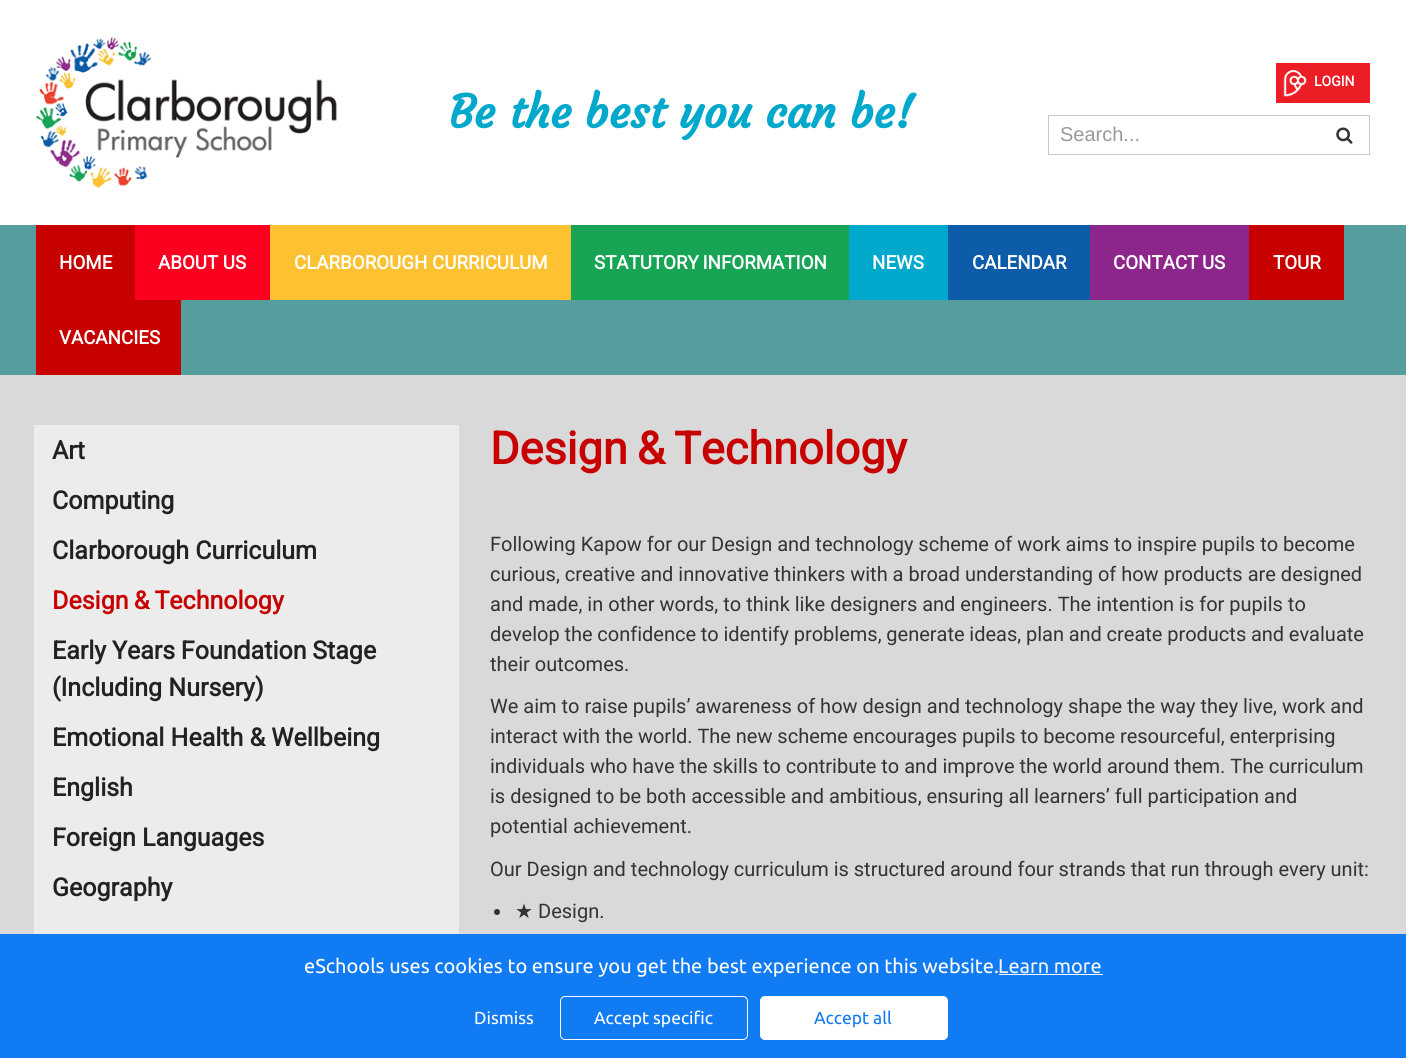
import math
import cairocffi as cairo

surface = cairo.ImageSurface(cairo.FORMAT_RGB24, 1406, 1058)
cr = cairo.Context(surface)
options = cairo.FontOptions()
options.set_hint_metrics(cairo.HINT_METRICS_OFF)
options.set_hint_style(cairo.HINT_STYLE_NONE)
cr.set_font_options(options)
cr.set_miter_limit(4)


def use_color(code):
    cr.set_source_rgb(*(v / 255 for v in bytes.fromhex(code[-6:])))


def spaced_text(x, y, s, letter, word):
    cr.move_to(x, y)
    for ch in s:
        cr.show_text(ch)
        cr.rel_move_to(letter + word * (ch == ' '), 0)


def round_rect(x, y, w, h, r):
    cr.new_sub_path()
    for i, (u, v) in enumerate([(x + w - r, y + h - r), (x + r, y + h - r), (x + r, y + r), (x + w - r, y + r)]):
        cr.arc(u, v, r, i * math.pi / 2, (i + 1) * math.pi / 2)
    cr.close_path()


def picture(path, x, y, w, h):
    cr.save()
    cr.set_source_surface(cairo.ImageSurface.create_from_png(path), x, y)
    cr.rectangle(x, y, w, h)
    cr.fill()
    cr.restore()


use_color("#d9d9d9")
cr.paint()
use_color("#ffffff")
cr.rectangle(0, 0, 1406, 225)
cr.fill()
picture("img1.png", 36, 37, 301, 151)
cr.select_font_face("Courgette", cairo.FONT_SLANT_NORMAL, cairo.FONT_WEIGHT_BOLD)
cr.set_font_size(45)
use_color("#00a9cc")
cr.move_to(449, 128)
cr.show_text("Be the best you can be!")
use_color("#ec1d25")
cr.rectangle(1276, 63, 94, 40)
cr.fill()
picture("img2.png", 1283, 70, 24, 27)
cr.select_font_face("Roboto", cairo.FONT_SLANT_NORMAL, cairo.FONT_WEIGHT_BOLD)
cr.set_font_size(14)
use_color("#ffffff")
cr.move_to(1314, 86)
cr.show_text("LOGIN")
cr.rectangle(1048.5, 115.5, 321, 39)
use_color("#c9c9c9")
cr.set_line_width(1)
cr.stroke()
cr.select_font_face("Liberation Sans")
cr.set_font_size(20)
use_color("#999999")
cr.move_to(1060, 141)
cr.show_text("Search...")
picture("img3.png", 1336, 127, 17, 17)
use_color("#569e9e")
cr.rectangle(0, 225, 1406, 150)
cr.fill()
use_color("#c70000")
cr.rectangle(36, 225, 99, 75)
cr.fill()
cr.select_font_face("Roboto", cairo.FONT_SLANT_NORMAL, cairo.FONT_WEIGHT_BOLD)
cr.set_font_size(18.75)
use_color("#ffffff")
cr.move_to(59, 269)
cr.show_text("HOME")
use_color("#fd001f")
cr.rectangle(135, 225, 135, 75)
cr.fill()
use_color("#ffffff")
cr.move_to(158, 269)
cr.show_text("ABOUT US")
use_color("#fec131")
cr.rectangle(270, 225, 301, 75)
cr.fill()
use_color("#ffffff")
cr.move_to(294, 269)
cr.show_text("CLARBOROUGH CURRICULUM")
use_color("#17a455")
cr.rectangle(571, 225, 278, 75)
cr.fill()
use_color("#ffffff")
spaced_text(594, 269, "STATUTORY INFORMATION", 0, -1)
use_color("#00a9cc")
cr.rectangle(849, 225, 99, 75)
cr.fill()
use_color("#ffffff")
cr.move_to(872, 269)
cr.show_text("NEWS")
use_color("#0c5ca9")
cr.rectangle(948, 225, 142, 75)
cr.fill()
use_color("#ffffff")
cr.move_to(972, 269)
cr.show_text("CALENDAR")
use_color("#8d268a")
cr.rectangle(1090, 225, 159, 75)
cr.fill()
use_color("#ffffff")
spaced_text(1113, 269, "CONTACT US", 0, -1)
use_color("#c70000")
cr.rectangle(1249, 225, 95, 75)
cr.fill()
use_color("#ffffff")
cr.move_to(1273, 269)
cr.show_text("TOUR")
use_color("#c70000")
cr.rectangle(36, 300, 145, 75)
cr.fill()
use_color("#ffffff")
cr.move_to(59, 344)
cr.show_text("VACANCIES")
use_color("#ececec")
cr.rectangle(34, 425, 425, 509)
cr.fill()
cr.set_font_size(25)
use_color("#222222")
cr.move_to(52, 459)
cr.show_text("Art")
cr.move_to(52, 509)
cr.show_text("Computing")
cr.move_to(52, 559)
cr.show_text("Clarborough Curriculum")
use_color("#c70000")
spaced_text(52, 609, "Design & Technology", 0, -1)
use_color("#222222")
spaced_text(52, 659, "Early Years Foundation Stage", 0, -0.5)
cr.move_to(52, 696)
cr.show_text("(Including Nursery)")
cr.move_to(52, 746)
cr.show_text("Emotional Health & Wellbeing")
cr.move_to(52, 796)
cr.show_text("English")
cr.move_to(52, 846)
cr.show_text("Foreign Languages")
cr.move_to(52, 896)
cr.show_text("Geography")
cr.set_font_size(45)
use_color("#c70000")
spaced_text(490, 464, "Design & Technology", 0, -2)
cr.select_font_face("Roboto")
cr.set_font_size(20)
use_color("#333333")
cr.move_to(490, 551)
cr.show_text("Following Kapow for our Design and technology scheme of work aims to inspire pupils to become")
cr.move_to(490, 581)
cr.show_text("curious, creative and innovative thinkers with a broad understanding of how products are designed")
cr.move_to(490, 611)
cr.show_text("and made, in other words, to think like designers and engineers. The intention is for pupils to")
spaced_text(490, 641, "develop the confidence to identify problems, generate ideas, plan and create products and evaluate", 0, -0.25)
cr.move_to(490, 671)
cr.show_text("their outcomes.")
cr.move_to(490, 713)
cr.show_text("We aim to raise pupils’ awareness of how design and technology shape the way they live, work and")
spaced_text(490, 743, "interact with the world. The new scheme encourages pupils to become resourceful, enterprising", 0, -0.1)
cr.move_to(490, 773)
cr.show_text("individuals who have the skills to contribute to and improve the world around them. The curriculum")
cr.move_to(490, 803)
cr.show_text("is designed to be both accessible and ambitious, ensuring all learners’ full participation and")
cr.move_to(490, 833)
cr.show_text("potential achievement.")
cr.move_to(490, 876)
cr.show_text("Our Design and technology curriculum is structured around four strands that run through every unit:")
cr.new_path()
cr.arc(497, 912, 3, 0, 2 * math.pi)
cr.fill()
cr.select_font_face("DejaVu Sans")
cr.move_to(515, 918)
cr.show_text("★")
cr.select_font_face("Roboto")
cr.move_to(538, 918)
cr.show_text("Design.")
use_color("#117bf3")
cr.rectangle(0, 934, 1406, 124)
cr.fill()
cr.select_font_face("Ubuntu")
use_color("#ffffff")
cr.move_to(304, 973)
cr.show_text("eSchools uses cookies to ensure you get the best experience on this website.")
use_color("#f7f7f7")
cr.rectangle(999, 974, 104, 1)
cr.fill()
cr.move_to(998, 973)
cr.show_text("Learn more")
cr.set_font_size(17.5)
use_color("#ffffff")
cr.move_to(474, 1024)
cr.show_text("Dismiss")
round_rect(560.5, 996.5, 187, 43, 4.5)
cr.stroke()
cr.move_to(594, 1024)
cr.show_text("Accept specific")
round_rect(760.5, 996.5, 187, 43, 4.5)
cr.fill_preserve()
cr.stroke()
use_color("#117bf3")
cr.move_to(814, 1024)
cr.show_text("Accept all")
surface.write_to_png("result.png")
